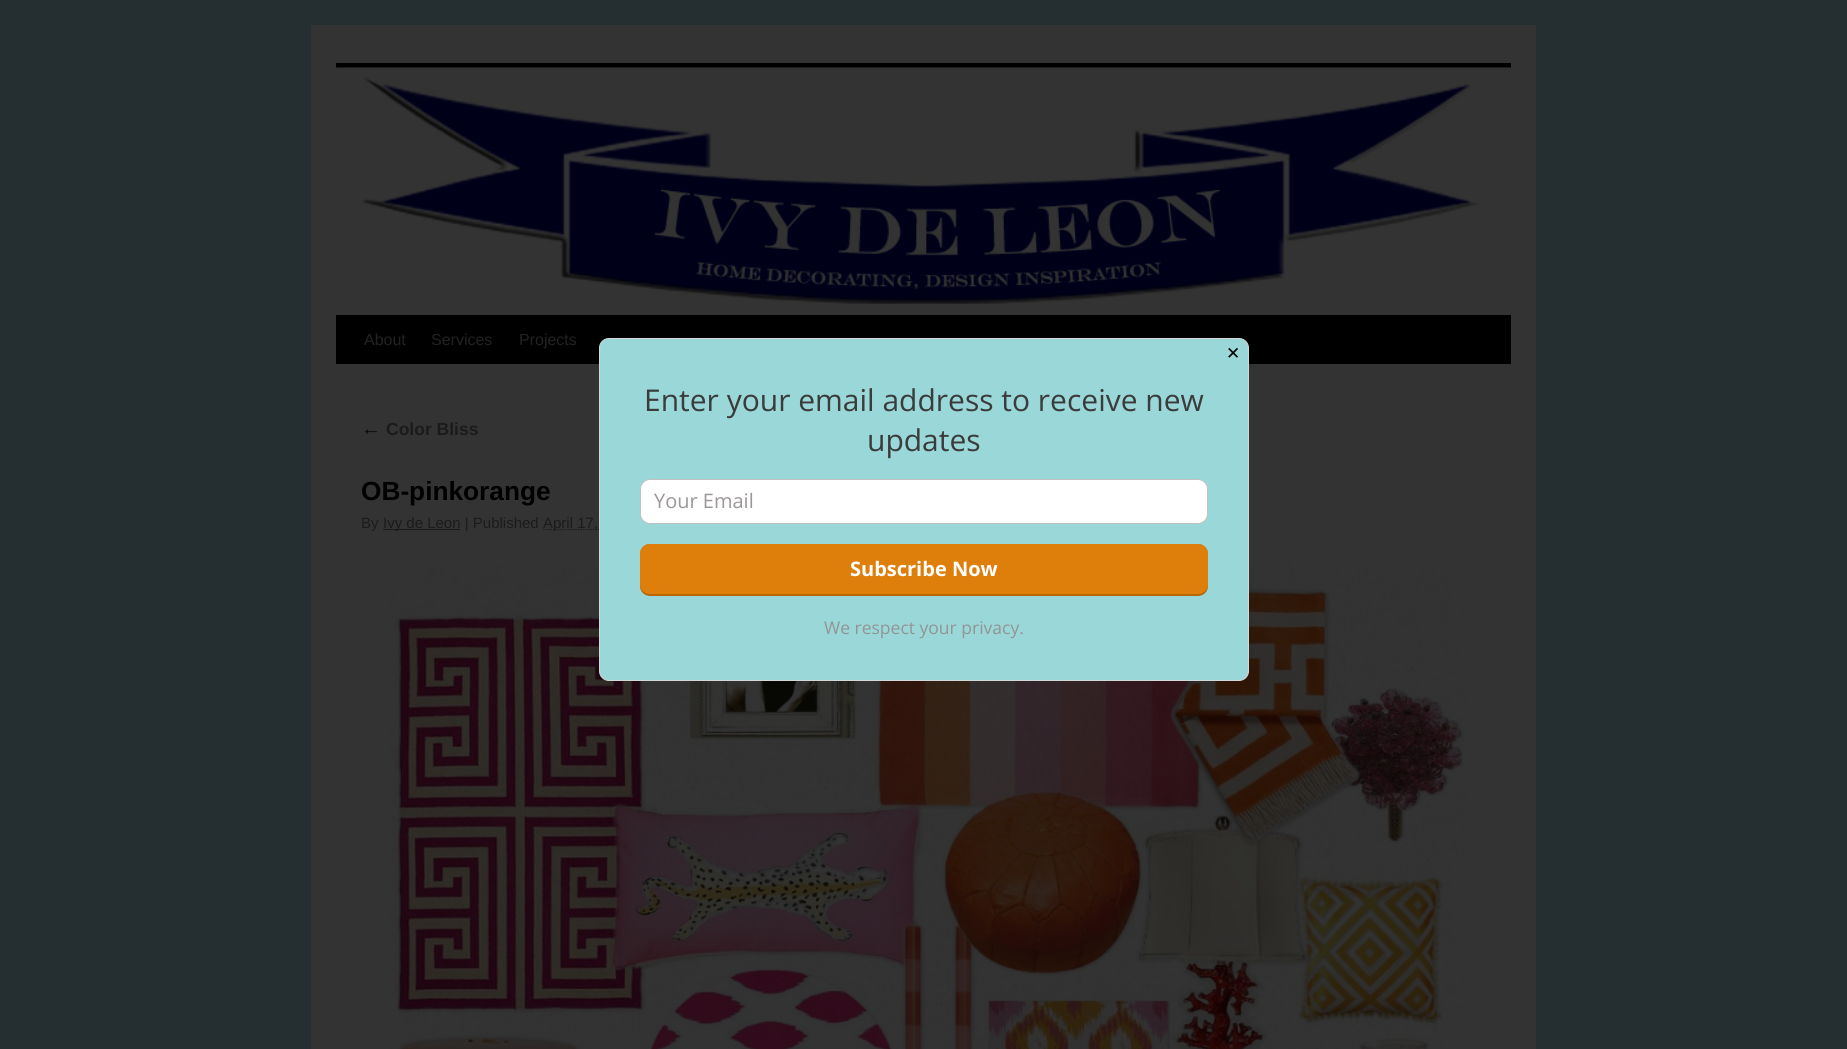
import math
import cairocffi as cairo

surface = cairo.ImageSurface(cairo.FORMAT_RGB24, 1847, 1049)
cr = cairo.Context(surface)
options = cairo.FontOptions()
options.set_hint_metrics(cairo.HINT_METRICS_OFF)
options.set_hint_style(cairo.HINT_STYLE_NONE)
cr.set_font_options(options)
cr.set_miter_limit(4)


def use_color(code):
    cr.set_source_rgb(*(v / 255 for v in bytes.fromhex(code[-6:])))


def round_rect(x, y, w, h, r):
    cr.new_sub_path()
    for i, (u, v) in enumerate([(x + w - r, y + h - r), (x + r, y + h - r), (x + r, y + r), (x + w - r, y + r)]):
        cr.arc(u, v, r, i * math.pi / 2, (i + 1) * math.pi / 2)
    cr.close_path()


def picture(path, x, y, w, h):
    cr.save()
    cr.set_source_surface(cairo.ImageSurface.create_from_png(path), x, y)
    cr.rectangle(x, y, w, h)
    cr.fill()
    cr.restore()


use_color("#252f32")
cr.paint()
use_color("#333333")
cr.rectangle(311, 25, 1225, 1024)
cr.fill()
use_color("#000000")
cr.rectangle(336, 63, 1175, 5)
cr.fill()
cr.rectangle(336, 315, 1175, 49)
cr.fill()
picture("img1.png", 336, 67, 1175, 240)
cr.select_font_face("Liberation Sans")
cr.set_font_size(16)
use_color("#222222")
cr.move_to(364, 345)
cr.show_text("About")
cr.move_to(431, 345)
cr.show_text("Services")
cr.move_to(519, 345)
cr.show_text("Projects")
cr.select_font_face("Liberation Serif", cairo.FONT_SLANT_ITALIC)
cr.set_font_size(20)
use_color("#0a0a0a")
cr.move_to(361, 435)
cr.show_text("←")
cr.select_font_face("Liberation Sans", cairo.FONT_SLANT_NORMAL, cairo.FONT_WEIGHT_BOLD)
cr.set_font_size(17.5)
use_color("#1b1b1b")
cr.move_to(386, 435)
cr.show_text("Color Bliss")
cr.set_font_size(26.25)
use_color("#000000")
cr.move_to(361, 500)
cr.show_text("OB-pinkorange")
cr.select_font_face("Liberation Sans")
cr.set_font_size(15)
use_color("#1b1b1b")
cr.move_to(361, 528)
cr.show_text("By")
cr.rectangle(383, 529, 77, 1)
cr.fill()
cr.move_to(383, 528)
cr.show_text("Ivy de Leon | Published")
cr.new_path()
cr.move_to(543, 529.5)
cr.line_to(635.5, 529.5)
cr.set_line_width(1.2)
cr.set_dash([1.25, 1.25])
cr.stroke()
cr.move_to(543, 528)
cr.show_text("April 17,")
picture("img2.png", 389, 564, 1080, 485)
use_color("#99d7d9")
round_rect(599.5, 338.5, 649, 342, 9.5)
cr.fill_preserve()
use_color("#d4d8d8")
cr.set_line_width(1)
cr.set_dash([])
cr.stroke()
cr.select_font_face("DejaVu Sans")
cr.set_font_size(17)
use_color("#000000")
cr.move_to(1226, 359)
cr.show_text("✕")
cr.select_font_face("Open Sans")
cr.set_font_size(30)
use_color("#3b3b3b")
cr.move_to(644, 411)
cr.show_text("Enter your email address to receive new")
cr.move_to(867, 451)
cr.show_text("updates")
use_color("#ffffff")
round_rect(640.5, 479.5, 567, 44, 9.5)
cr.fill_preserve()
use_color("#bec2c2")
cr.stroke()
cr.set_font_size(20)
use_color("#9b9797")
cr.move_to(654, 508)
cr.show_text("Your Email")
use_color("#b96701")
round_rect(640, 544, 568, 52, 10)
cr.fill()
use_color("#de7f0b")
round_rect(640, 544, 568, 50, 10)
cr.fill()
cr.select_font_face("Open Sans", cairo.FONT_SLANT_NORMAL, cairo.FONT_WEIGHT_BOLD)
use_color("#ffffff")
cr.move_to(850, 576)
cr.show_text("Subscribe Now")
cr.select_font_face("Open Sans")
cr.set_font_size(17.5)
use_color("#949494")
cr.move_to(824, 634)
cr.show_text("We respect your privacy.")
surface.write_to_png("result.png")
